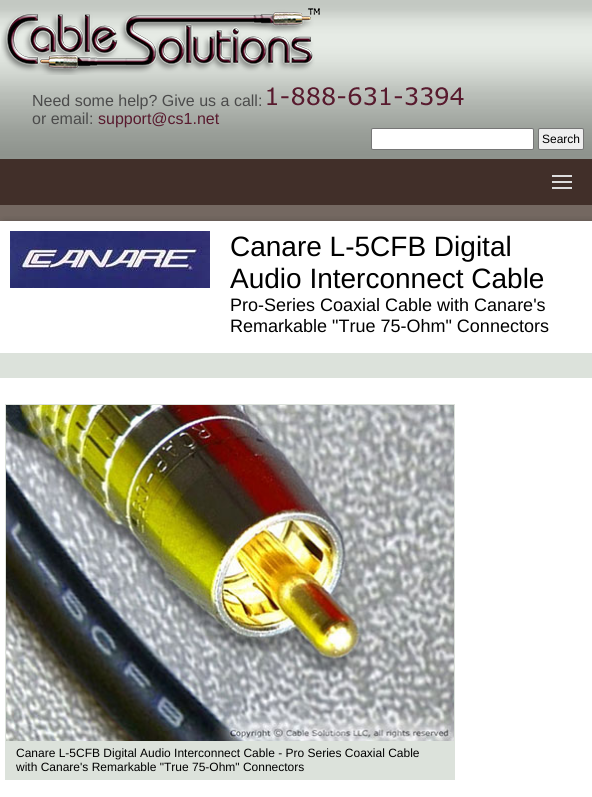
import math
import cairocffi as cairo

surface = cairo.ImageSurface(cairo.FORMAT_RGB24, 592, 797)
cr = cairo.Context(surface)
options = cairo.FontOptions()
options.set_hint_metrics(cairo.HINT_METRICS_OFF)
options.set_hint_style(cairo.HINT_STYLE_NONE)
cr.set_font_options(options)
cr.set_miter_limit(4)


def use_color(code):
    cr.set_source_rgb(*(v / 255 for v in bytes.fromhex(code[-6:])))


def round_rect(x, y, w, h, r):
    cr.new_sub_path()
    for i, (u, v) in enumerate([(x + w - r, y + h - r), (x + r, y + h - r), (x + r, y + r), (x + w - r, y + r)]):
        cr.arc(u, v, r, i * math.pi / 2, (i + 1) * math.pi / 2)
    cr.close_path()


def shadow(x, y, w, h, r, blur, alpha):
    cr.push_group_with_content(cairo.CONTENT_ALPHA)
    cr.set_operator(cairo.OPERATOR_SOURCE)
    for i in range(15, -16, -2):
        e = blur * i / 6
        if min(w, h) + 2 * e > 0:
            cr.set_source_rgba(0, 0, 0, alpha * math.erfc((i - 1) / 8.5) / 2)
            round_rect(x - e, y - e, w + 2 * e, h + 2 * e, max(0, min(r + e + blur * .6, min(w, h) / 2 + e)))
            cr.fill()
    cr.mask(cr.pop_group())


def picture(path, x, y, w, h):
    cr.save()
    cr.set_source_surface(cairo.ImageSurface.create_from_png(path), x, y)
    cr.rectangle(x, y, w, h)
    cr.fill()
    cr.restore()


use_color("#746861")
cr.paint()
picture("img1.png", 0, 0, 592, 159)
picture("img2.png", 1, 8, 319, 67)
cr.select_font_face("Liberation Sans")
cr.set_font_size(16)
use_color("#4b4b4b")
cr.move_to(32, 106)
cr.show_text("Need some help? Give us a call:")
picture("img3.png", 267, 87, 197, 19)
cr.move_to(32, 124)
cr.show_text("or email:")
use_color("#581a2e")
cr.move_to(98, 124)
cr.show_text("support@cs1.net")
use_color("#ffffff")
round_rect(371.5, 128.5, 162, 21, 1.5)
cr.fill_preserve()
use_color("#767676")
cr.set_line_width(1)
cr.stroke()
use_color("#efefef")
round_rect(538.5, 128.5, 45, 21, 1.5)
cr.fill_preserve()
use_color("#767676")
cr.stroke()
cr.set_font_size(12)
use_color("#000000")
cr.move_to(542, 143)
cr.show_text("Search")
use_color("#412f29")
cr.rectangle(0, 159, 592, 46)
cr.fill()
use_color("#dddddd")
cr.rectangle(552, 175, 20, 2)
cr.fill()
cr.rectangle(552, 181, 20, 2)
cr.fill()
cr.rectangle(552, 187, 20, 2)
cr.fill()
use_color("#ffffff")
cr.rectangle(0, 221, 592, 576)
cr.fill()
cr.save()
cr.rectangle(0, 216, 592, 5)
cr.clip()
use_color("#000000")
shadow(4, 225, 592, 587, 0, 5, 0.5)
cr.restore()
picture("img4.png", 10, 231, 200, 57)
cr.set_font_size(28)
use_color("#000000")
cr.move_to(230, 256)
cr.show_text("Canare L-5CFB Digital")
cr.move_to(230, 288)
cr.show_text("Audio Interconnect Cable")
cr.set_font_size(18)
cr.move_to(230, 311)
cr.show_text("Pro-Series Coaxial Cable with Canare's")
cr.move_to(230, 332)
cr.show_text("Remarkable \"True 75-Ohm\" Connectors")
use_color("#dce2db")
cr.rectangle(0, 353, 592, 25)
cr.fill()
cr.rectangle(5.5, 404.5, 449, 375)
cr.stroke()
picture("img5.png", 6, 405, 448, 336)
cr.rectangle(6, 741, 448, 38)
cr.fill()
cr.set_font_size(12)
use_color("#000000")
cr.move_to(16, 757)
cr.show_text("Canare L-5CFB Digital Audio Interconnect Cable - Pro Series Coaxial Cable")
cr.move_to(16, 771)
cr.show_text("with Canare's Remarkable \"True 75-Ohm\" Connectors")
surface.write_to_png("result.png")
